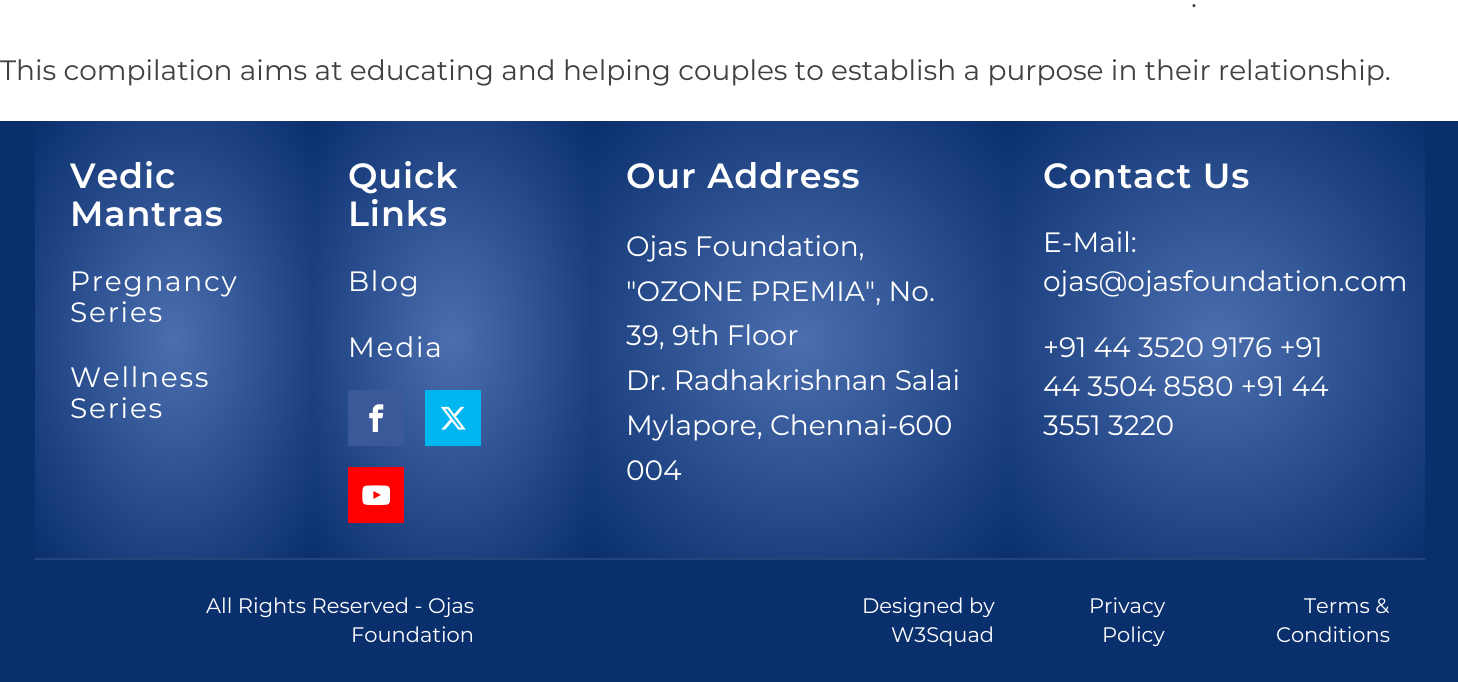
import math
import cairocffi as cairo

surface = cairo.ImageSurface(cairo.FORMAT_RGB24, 1458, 682)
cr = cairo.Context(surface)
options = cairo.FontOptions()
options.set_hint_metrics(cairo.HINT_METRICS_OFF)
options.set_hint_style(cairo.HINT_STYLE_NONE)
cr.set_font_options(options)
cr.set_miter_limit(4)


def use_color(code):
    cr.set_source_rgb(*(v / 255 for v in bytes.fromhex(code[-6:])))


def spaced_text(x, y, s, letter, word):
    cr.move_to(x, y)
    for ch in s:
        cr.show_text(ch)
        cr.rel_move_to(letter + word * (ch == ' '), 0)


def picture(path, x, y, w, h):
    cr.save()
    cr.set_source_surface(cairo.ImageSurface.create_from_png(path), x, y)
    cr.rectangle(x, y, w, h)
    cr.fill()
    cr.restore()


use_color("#ffffff")
cr.paint()
cr.select_font_face("Montserrat")
cr.set_font_size(28)
use_color("#404040")
cr.move_to(1191, 7)
cr.show_text(".")
cr.move_to(0, 80)
cr.show_text("This compilation aims at educating and helping couples to establish a purpose in their relationship.")
use_color("#0a2f6d")
cr.rectangle(0, 121, 1458, 561)
cr.fill()
use_color("#23447c")
cr.rectangle(35, 558, 1390, 2)
cr.fill()
gradient = cairo.RadialGradient(0, 0, 0, 0, 0, 1)
gradient.set_matrix(cairo.Matrix(1 / 197, 0, 0, 1 / 309, -1 * 174 / 197, -1 * 340 / 309))
gradient.add_color_stop_rgba(0, 0.294, 0.431, 0.686, 1)
gradient.add_color_stop_rgba(1, 0.039, 0.184, 0.427, 1)
cr.set_source(gradient)
cr.rectangle(35, 121, 278, 437)
cr.fill()
cr.select_font_face("Montserrat SemiBold")
cr.set_font_size(35)
use_color("#ffffff")
spaced_text(70, 188, "Vedic", 0.9, 0)
spaced_text(70, 226, "Mantras", 0.9, 0)
cr.select_font_face("Montserrat")
cr.set_font_size(28)
spaced_text(70, 291, "Pregnancy", 1.75, 0)
spaced_text(70, 322, "Series", 1.75, 0)
spaced_text(70, 387, "Wellness", 1.75, 0)
spaced_text(70, 418, "Series", 1.75, 0)
gradient = cairo.RadialGradient(0, 0, 0, 0, 0, 1)
gradient.set_matrix(cairo.Matrix(1 / 197, 0, 0, 1 / 309, -1 * 452 / 197, -1 * 340 / 309))
gradient.add_color_stop_rgba(0, 0.294, 0.431, 0.686, 1)
gradient.add_color_stop_rgba(1, 0.039, 0.184, 0.427, 1)
cr.set_source(gradient)
cr.rectangle(313, 121, 279, 437)
cr.fill()
cr.select_font_face("Montserrat SemiBold")
cr.set_font_size(35)
use_color("#ffffff")
spaced_text(348, 188, "Quick", 0.9, 0)
spaced_text(348, 226, "Links", 0.9, 0)
cr.select_font_face("Montserrat")
cr.set_font_size(28)
spaced_text(348, 291, "Blog", 1.75, 0)
spaced_text(348, 357, "Media", 1.75, 0)
use_color("#3b5998")
cr.rectangle(348, 390, 56, 56)
cr.fill()
picture("img1.png", 369, 404, 15, 28)
use_color("#00b6f1")
cr.rectangle(425, 390, 56, 56)
cr.fill()
picture("img2.png", 440, 406, 26, 24)
use_color("#ff0000")
cr.rectangle(348, 467, 56, 56)
cr.fill()
picture("img3.png", 362, 485, 28, 21)
gradient = cairo.RadialGradient(0, 0, 0, 0, 0, 1)
gradient.set_matrix(cairo.Matrix(1 / 295, 0, 0, 1 / 309, -1 * 800 / 295, -1 * 340 / 309))
gradient.add_color_stop_rgba(0, 0.294, 0.431, 0.686, 1)
gradient.add_color_stop_rgba(1, 0.039, 0.184, 0.427, 1)
cr.set_source(gradient)
cr.rectangle(592, 121, 416, 437)
cr.fill()
cr.select_font_face("Montserrat SemiBold")
cr.set_font_size(35)
use_color("#ffffff")
spaced_text(626, 188, "Our Address", 0.9, 0)
cr.select_font_face("Montserrat")
cr.set_font_size(28)
cr.move_to(626, 256)
cr.show_text("Ojas Foundation,")
cr.move_to(626, 301)
cr.show_text("\"OZONE PREMIA\", No.")
cr.move_to(626, 345)
cr.show_text("39, 9th Floor")
cr.move_to(626, 390)
cr.show_text("Dr. Radhakrishnan Salai")
cr.move_to(626, 435)
cr.show_text("Mylapore, Chennai-600")
cr.move_to(626, 480)
cr.show_text("004")
gradient = cairo.RadialGradient(0, 0, 0, 0, 0, 1)
gradient.set_matrix(cairo.Matrix(1 / 295, 0, 0, 1 / 309, -1 * 1216 / 295, -1 * 340 / 309))
gradient.add_color_stop_rgba(0, 0.294, 0.431, 0.686, 1)
gradient.add_color_stop_rgba(1, 0.039, 0.184, 0.427, 1)
cr.set_source(gradient)
cr.rectangle(1008, 121, 417, 437)
cr.fill()
cr.select_font_face("Montserrat SemiBold")
cr.set_font_size(35)
use_color("#ffffff")
spaced_text(1043, 188, "Contact Us", 0.9, 0)
cr.select_font_face("Montserrat")
cr.set_font_size(28)
cr.move_to(1043, 252)
cr.show_text("E-Mail:")
cr.move_to(1043, 291)
cr.show_text("ojas@ojasfoundation.com")
cr.move_to(1043, 357)
cr.show_text("+91 44 3520 9176 +91")
cr.move_to(1043, 396)
cr.show_text("44 3504 8580 +91 44")
cr.move_to(1043, 435)
cr.show_text("3551 3220")
cr.set_font_size(21)
cr.move_to(206, 613)
cr.show_text("All Rights Reserved - Ojas")
cr.move_to(351, 642)
cr.show_text("Foundation")
cr.move_to(862, 613)
cr.show_text("Designed by")
cr.move_to(891, 642)
cr.show_text("W3Squad")
cr.move_to(1089, 613)
cr.show_text("Privacy")
cr.move_to(1102, 642)
cr.show_text("Policy")
cr.move_to(1304, 613)
cr.show_text("Terms &")
cr.move_to(1276, 642)
cr.show_text("Conditions")
surface.write_to_png("result.png")
